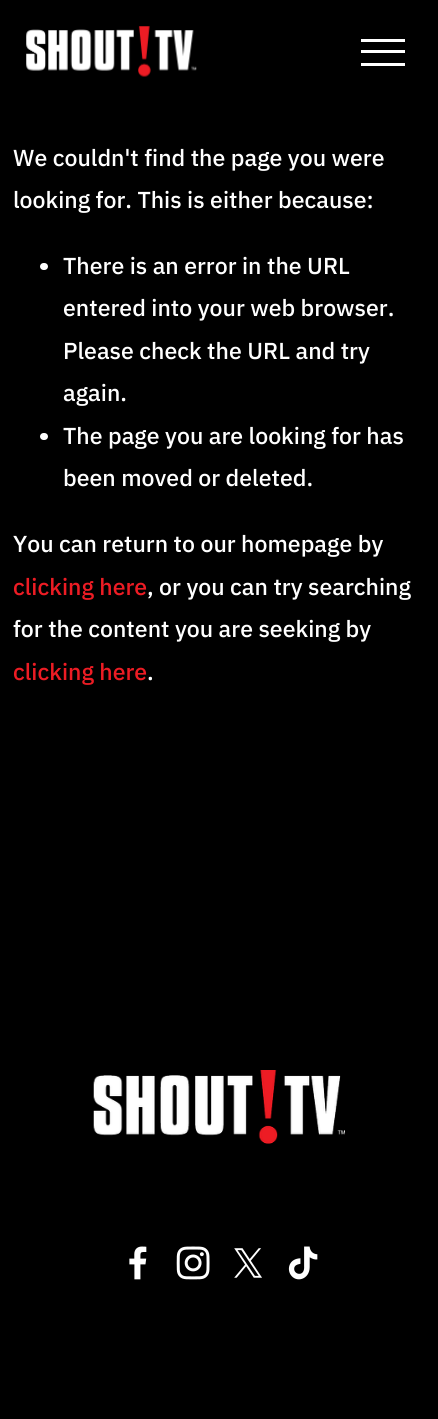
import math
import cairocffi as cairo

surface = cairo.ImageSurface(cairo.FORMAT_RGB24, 438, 1419)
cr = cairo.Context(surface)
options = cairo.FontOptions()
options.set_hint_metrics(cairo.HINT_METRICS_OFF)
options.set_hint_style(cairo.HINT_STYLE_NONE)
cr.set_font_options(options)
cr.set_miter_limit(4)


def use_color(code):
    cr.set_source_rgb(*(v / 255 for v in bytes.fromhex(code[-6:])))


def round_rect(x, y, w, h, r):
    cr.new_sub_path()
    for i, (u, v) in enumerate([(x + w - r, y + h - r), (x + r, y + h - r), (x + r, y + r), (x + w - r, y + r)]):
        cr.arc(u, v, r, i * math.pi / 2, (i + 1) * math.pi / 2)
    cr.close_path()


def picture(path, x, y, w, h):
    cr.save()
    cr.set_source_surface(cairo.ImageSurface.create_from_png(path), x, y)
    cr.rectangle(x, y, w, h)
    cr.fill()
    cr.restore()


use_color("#000000")
cr.paint()
picture("img1.png", 26, 26, 171, 51)
use_color("#ffffff")
cr.rectangle(361, 39, 44, 3)
cr.fill()
cr.rectangle(361, 50, 44, 3)
cr.fill()
cr.rectangle(361, 63, 44, 3)
cr.fill()
cr.select_font_face("IBM Plex Sans Medium")
cr.set_font_size(23.1)
cr.move_to(13, 166)
cr.show_text("We couldn't find the page you were")
cr.move_to(13, 208)
cr.show_text("looking for. This is either because:")
round_rect(40, 263, 8, 7, 3.5)
cr.fill()
cr.move_to(63, 274)
cr.show_text("There is an error in the URL")
cr.move_to(63, 316)
cr.show_text("entered into your web browser.")
cr.move_to(63, 359)
cr.show_text("Please check the URL and try")
cr.move_to(63, 401)
cr.show_text("again.")
round_rect(40, 433, 8, 7, 3.5)
cr.fill()
cr.move_to(63, 444)
cr.show_text("The page you are looking for has")
cr.move_to(63, 486)
cr.show_text("been moved or deleted.")
cr.move_to(13, 552)
cr.show_text("You can return to our homepage by")
use_color("#ed1c24")
cr.move_to(13, 595)
cr.show_text("clicking here")
use_color("#ffffff")
cr.move_to(147, 595)
cr.show_text(", or you can try searching")
cr.move_to(13, 637)
cr.show_text("for the content you are seeking by")
use_color("#ed1c24")
cr.move_to(13, 680)
cr.show_text("clicking here")
use_color("#ffffff")
cr.move_to(147, 680)
cr.show_text(".")
picture("img2.png", 93, 1070, 252, 74)
picture("img3.png", 129, 1246, 18, 34)
picture("img4.png", 176, 1246, 34, 34)
picture("img5.png", 234, 1248, 28, 30)
picture("img6.png", 288, 1246, 30, 34)
surface.write_to_png("result.png")
